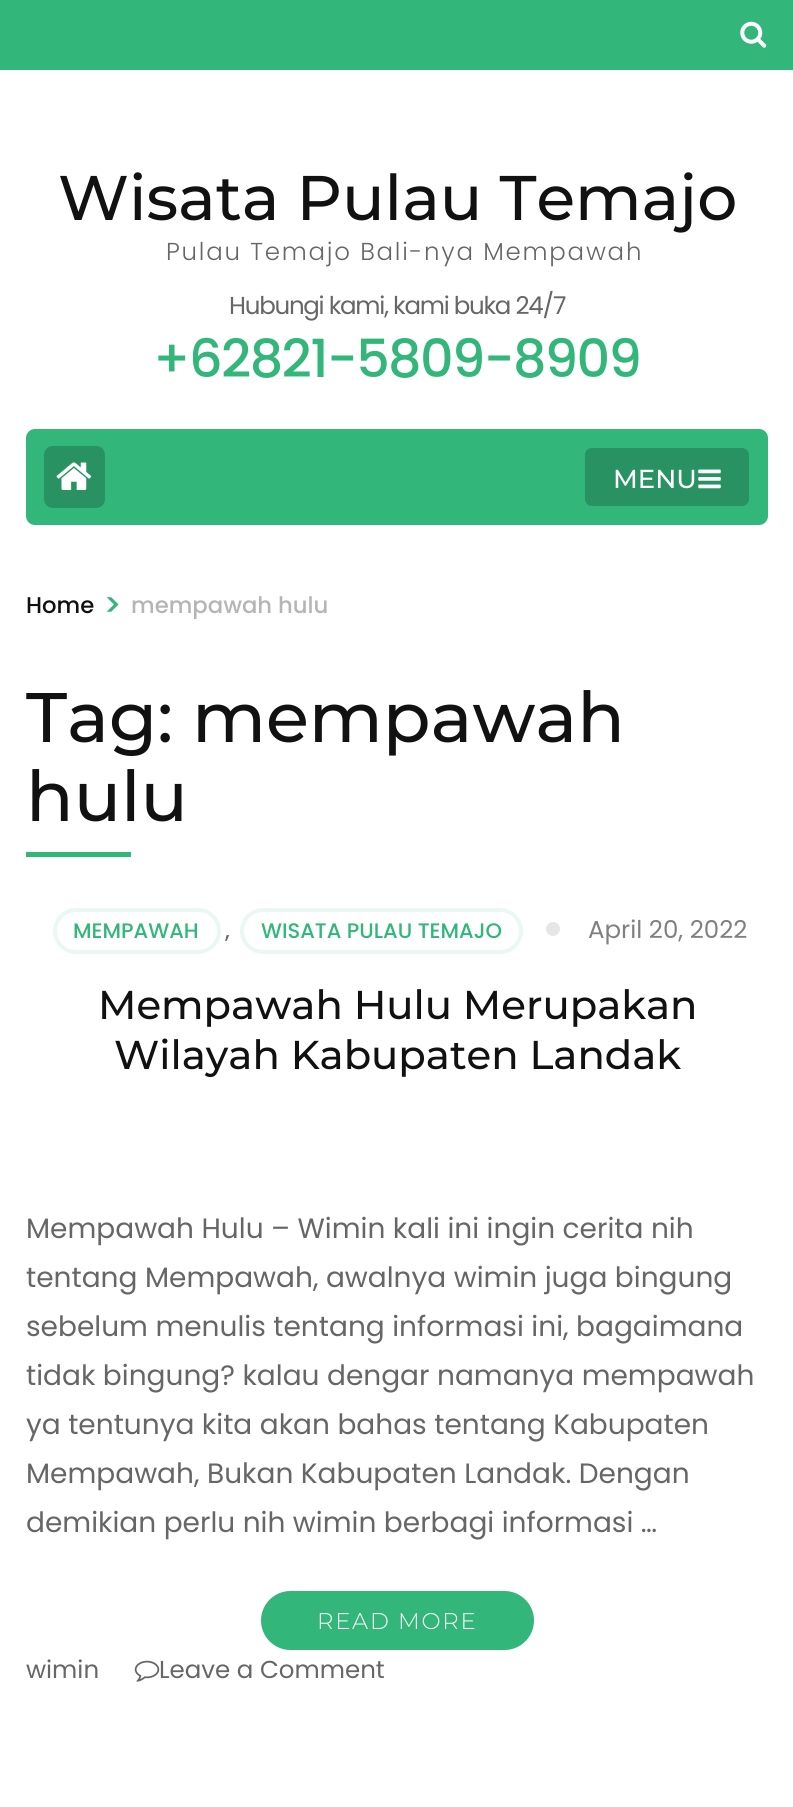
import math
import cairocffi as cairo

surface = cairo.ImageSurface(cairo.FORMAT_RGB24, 793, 1807)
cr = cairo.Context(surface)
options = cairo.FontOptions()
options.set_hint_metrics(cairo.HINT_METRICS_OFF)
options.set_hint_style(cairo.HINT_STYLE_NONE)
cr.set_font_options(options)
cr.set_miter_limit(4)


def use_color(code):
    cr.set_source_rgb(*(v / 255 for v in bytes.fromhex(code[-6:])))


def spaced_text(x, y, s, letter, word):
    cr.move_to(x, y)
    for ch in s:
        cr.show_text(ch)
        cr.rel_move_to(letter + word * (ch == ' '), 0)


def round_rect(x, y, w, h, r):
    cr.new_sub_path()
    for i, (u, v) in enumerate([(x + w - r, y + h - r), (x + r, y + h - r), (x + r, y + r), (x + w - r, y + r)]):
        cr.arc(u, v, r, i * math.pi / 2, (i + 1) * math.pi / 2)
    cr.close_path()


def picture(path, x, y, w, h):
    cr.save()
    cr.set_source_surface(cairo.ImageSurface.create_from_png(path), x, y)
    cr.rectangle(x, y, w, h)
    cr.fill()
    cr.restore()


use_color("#ffffff")
cr.paint()
use_color("#32b67a")
cr.rectangle(0, 0, 793, 70)
cr.fill()
picture("img1.png", 740, 21, 27, 27)
cr.select_font_face("Montserrat Medium")
cr.set_font_size(63)
use_color("#111111")
cr.move_to(58, 220)
cr.show_text("Wisata Pulau Temajo")
cr.select_font_face("Poppins Light")
cr.set_font_size(24.5)
use_color("#666666")
spaced_text(166, 260, "Pulau Temajo Bali-nya Mempawah", 1.75, 0)
cr.select_font_face("Poppins")
spaced_text(229, 314, "Hubungi kami, kami buka 24/7", -1.25, 0)
cr.select_font_face("Poppins Medium")
cr.set_font_size(52.5)
use_color("#32b67a")
spaced_text(153, 377, "+62821-5809-8909", -1.6, 0)
round_rect(26, 429, 742, 96, 9)
cr.fill()
use_color("#289262")
round_rect(44, 446, 61, 62, 9)
cr.fill()
picture("img2.png", 56, 462, 36, 28)
round_rect(584, 447, 166, 60, 8)
cr.fill_preserve()
use_color("#32b67a")
cr.stroke()
cr.select_font_face("Montserrat Medium")
cr.set_font_size(26)
use_color("#ffffff")
cr.move_to(613, 488)
cr.show_text("MENU")
picture("img3.png", 698, 469, 23, 20)
cr.select_font_face("Poppins Medium")
cr.set_font_size(22.75)
use_color("#111111")
cr.move_to(26, 613)
cr.show_text("Home")
cr.set_font_size(32)
use_color("#32b67a")
cr.move_to(103, 616)
cr.show_text(">")
cr.set_font_size(22.75)
use_color("#b5b5b5")
cr.move_to(131, 613)
cr.show_text("mempawah hulu")
cr.select_font_face("Montserrat Medium")
cr.set_font_size(70)
use_color("#111111")
cr.move_to(26, 742)
cr.show_text("Tag: mempawah")
cr.move_to(26, 821)
cr.show_text("hulu")
use_color("#32b67a")
cr.rectangle(26, 852, 105, 5)
cr.fill()
round_rect(55, 910, 164, 42, 21)
use_color("#ebf8f2")
cr.set_line_width(4)
cr.stroke()
cr.select_font_face("Poppins Medium")
cr.set_font_size(21)
use_color("#32b67a")
cr.move_to(73, 938)
cr.show_text("MEMPAWAH")
use_color("#666666")
cr.move_to(225, 938)
cr.show_text(",")
round_rect(242, 910, 279, 42, 21)
use_color("#ebf8f2")
cr.stroke()
use_color("#32b67a")
cr.move_to(261, 938)
cr.show_text("WISATA PULAU TEMAJO")
use_color("#e6e6e6")
cr.new_path()
cr.arc(553, 929, 7, 0, 2 * math.pi)
cr.fill()
cr.select_font_face("Poppins")
cr.set_font_size(24.5)
use_color("#808080")
cr.move_to(588, 938)
cr.show_text("April 20, 2022")
cr.select_font_face("Montserrat Medium")
cr.set_font_size(40.25)
use_color("#111111")
cr.move_to(98, 1019)
cr.show_text("Mempawah Hulu Merupakan")
cr.move_to(114, 1069)
cr.show_text("Wilayah Kabupaten Landak")
cr.select_font_face("Poppins")
cr.set_font_size(28)
use_color("#666666")
cr.move_to(26, 1238)
cr.show_text("Mempawah Hulu – Wimin kali ini ingin cerita nih")
cr.move_to(26, 1287)
cr.show_text("tentang Mempawah, awalnya wimin juga bingung")
cr.move_to(26, 1336)
cr.show_text("sebelum menulis tentang informasi ini, bagaimana")
cr.move_to(26, 1385)
cr.show_text("tidak bingung? kalau dengar namanya mempawah")
cr.move_to(26, 1434)
cr.show_text("ya tentunya kita akan bahas tentang Kabupaten")
cr.move_to(26, 1483)
cr.show_text("Mempawah, Bukan Kabupaten Landak. Dengan")
cr.move_to(26, 1532)
cr.show_text("demikian perlu nih wimin berbagi informasi …")
use_color("#32b67a")
round_rect(263, 1593, 269, 55, 27.5)
cr.fill_preserve()
cr.stroke()
cr.select_font_face("Montserrat Light")
cr.set_font_size(22.75)
use_color("#ffffff")
spaced_text(317, 1629, "READ MORE", 1.75, 0)
cr.select_font_face("Poppins")
cr.set_font_size(24.5)
use_color("#666666")
cr.move_to(26, 1678)
cr.show_text("wimin")
picture("img4.png", 134, 1660, 26, 22)
cr.move_to(159, 1678)
cr.show_text("Leave a Comment")
surface.write_to_png("result.png")
